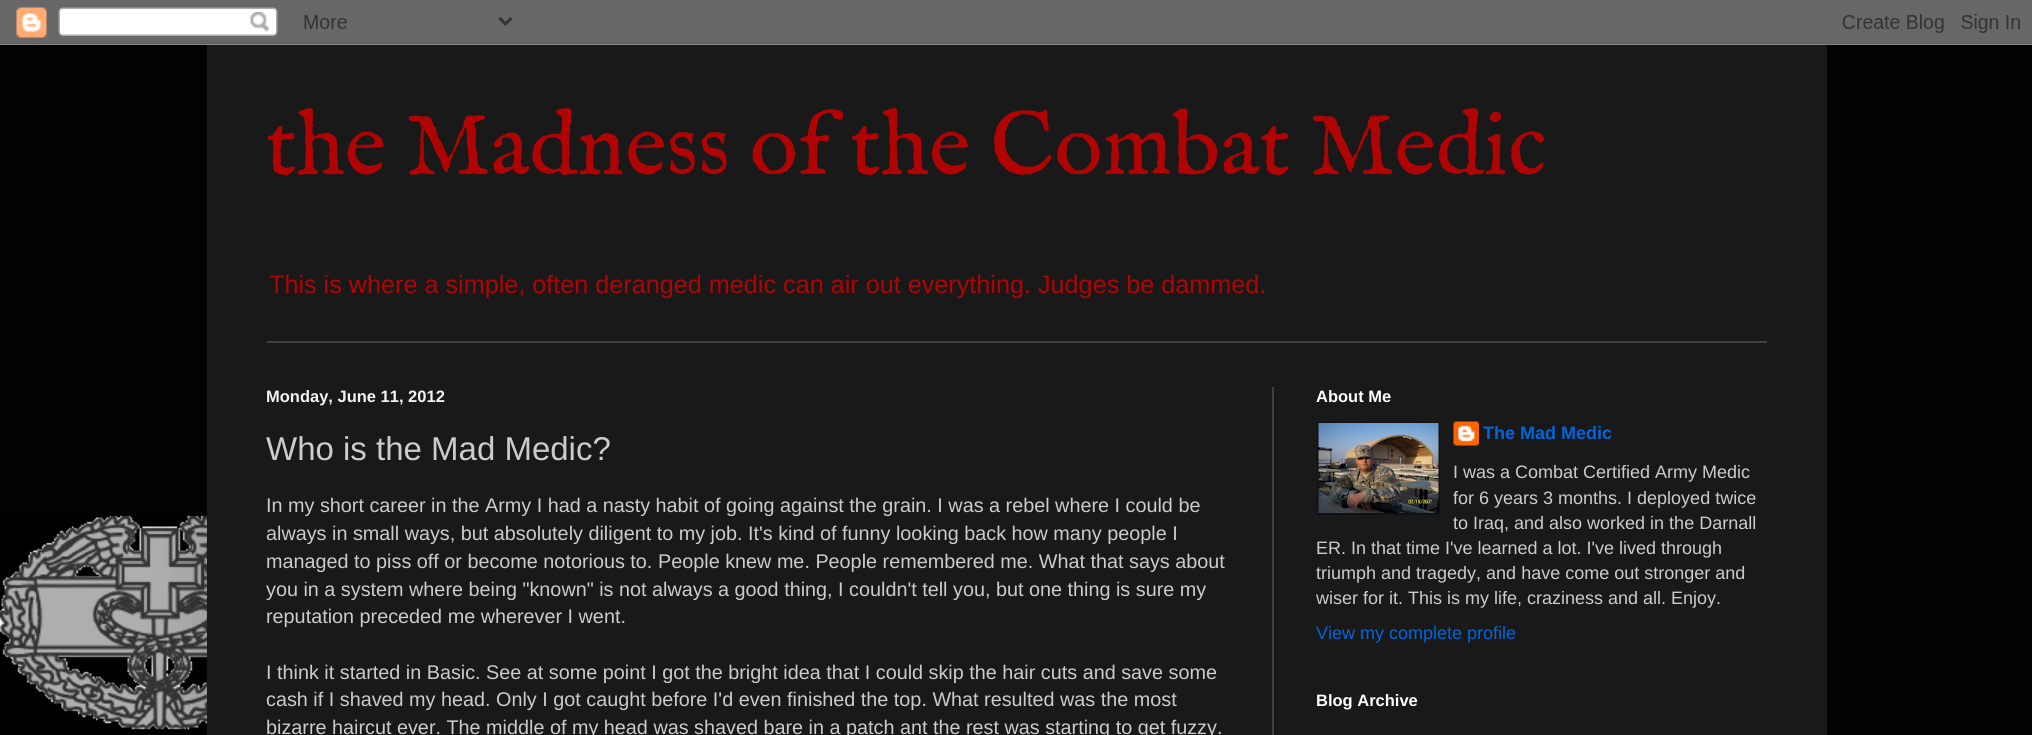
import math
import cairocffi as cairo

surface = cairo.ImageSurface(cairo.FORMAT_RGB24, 2032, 735)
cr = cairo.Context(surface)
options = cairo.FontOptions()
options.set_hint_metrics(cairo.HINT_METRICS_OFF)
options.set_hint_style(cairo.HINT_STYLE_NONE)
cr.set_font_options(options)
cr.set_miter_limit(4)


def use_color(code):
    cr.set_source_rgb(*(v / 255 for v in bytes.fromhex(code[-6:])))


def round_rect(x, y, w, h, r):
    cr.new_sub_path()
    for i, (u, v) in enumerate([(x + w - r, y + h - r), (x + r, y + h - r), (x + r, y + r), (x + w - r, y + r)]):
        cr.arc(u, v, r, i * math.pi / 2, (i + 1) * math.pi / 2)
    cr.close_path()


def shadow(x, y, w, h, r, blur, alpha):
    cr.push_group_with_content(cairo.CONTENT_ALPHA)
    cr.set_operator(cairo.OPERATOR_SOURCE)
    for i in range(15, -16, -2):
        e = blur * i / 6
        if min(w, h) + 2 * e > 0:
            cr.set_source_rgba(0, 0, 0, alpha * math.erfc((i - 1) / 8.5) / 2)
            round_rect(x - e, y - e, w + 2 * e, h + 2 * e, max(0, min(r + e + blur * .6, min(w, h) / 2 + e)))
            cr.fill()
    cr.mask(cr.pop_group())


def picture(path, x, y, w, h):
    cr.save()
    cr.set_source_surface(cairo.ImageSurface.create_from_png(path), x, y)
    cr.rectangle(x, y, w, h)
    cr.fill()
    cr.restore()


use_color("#020202")
cr.paint()
picture("img1.png", 0, 515, 207, 215)
use_color("#000000")
shadow(207, 45, 1620, 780, 0, 30, 0.15)
picture("img2.png", 0, 0, 2032, 45)
use_color("#191919")
cr.rectangle(207, 45, 1620, 690)
cr.fill()
cr.select_font_face("IM FELL English")
cr.set_font_size(90)
use_color("#b00404")
cr.move_to(266, 174)
cr.show_text("the Madness of the Combat Medic")
cr.select_font_face("Liberation Sans")
cr.set_font_size(25.2)
cr.move_to(269, 293)
cr.show_text("This is where a simple, often deranged medic can air out everything. Judges be dammed.")
use_color("#404040")
cr.rectangle(267, 341, 1500, 2)
cr.fill()
cr.rectangle(1272, 387, 2, 348)
cr.fill()
cr.select_font_face("Liberation Sans", cairo.FONT_SLANT_NORMAL, cairo.FONT_WEIGHT_BOLD)
cr.set_font_size(16.5)
use_color("#f3f3f3")
cr.move_to(266, 402)
cr.show_text("Monday, June 11, 2012")
cr.select_font_face("Liberation Sans")
cr.set_font_size(33)
use_color("#cccccc")
cr.move_to(266, 460)
cr.show_text("Who is the Mad Medic?")
cr.set_font_size(19.8)
cr.move_to(266, 512)
cr.show_text("In my short career in the Army I had a nasty habit of going against the grain. I was a rebel where I could be")
cr.move_to(266, 540)
cr.show_text("always in small ways, but absolutely diligent to my job.")
cr.move_to(748, 540)
cr.show_text("It's kind of funny looking back how many people I")
cr.move_to(266, 568)
cr.show_text("managed to piss off or become notorious to.")
cr.move_to(658, 568)
cr.show_text("People knew me. People remembered me. What that says about")
cr.move_to(266, 596)
cr.show_text("you in a system where being \"known\" is not always a good thing, I couldn't tell you, but one thing is sure my")
cr.move_to(266, 623)
cr.show_text("reputation preceded me wherever I went.")
cr.move_to(266, 679)
cr.show_text("I think it started in Basic. See at some point I got the bright idea that I could skip the hair cuts and save some")
cr.move_to(266, 706)
cr.show_text("cash if I shaved my head. Only I got caught before I'd even finished the top. What resulted was the most")
cr.move_to(266, 734)
cr.show_text("bizarre haircut ever. The middle of my head was shaved bare in a patch ant the rest was starting to get fuzzy.")
cr.select_font_face("Liberation Sans", cairo.FONT_SLANT_NORMAL, cairo.FONT_WEIGHT_BOLD)
cr.set_font_size(16.5)
use_color("#ffffff")
cr.move_to(1316, 402)
cr.show_text("About Me")
use_color("#111111")
cr.rectangle(1317, 422, 123, 93)
cr.fill()
picture("img3.png", 1318, 423, 121, 90)
picture("img4.png", 1453, 421, 26, 25)
cr.set_font_size(18)
use_color("#0065dd")
cr.move_to(1483, 439)
cr.show_text("The Mad Medic")
cr.select_font_face("Liberation Sans")
use_color("#cccccc")
cr.move_to(1453, 478)
cr.show_text("I was a Combat Certified Army Medic")
cr.move_to(1453, 504)
cr.show_text("for 6 years 3 months. I deployed twice")
cr.move_to(1453, 529)
cr.show_text("to Iraq, and also worked in the Darnall")
cr.move_to(1316, 554)
cr.show_text("ER. In that time I've learned a lot. I've lived through")
cr.move_to(1316, 579)
cr.show_text("triumph and tragedy, and have come out stronger and")
cr.move_to(1316, 604)
cr.show_text("wiser for it. This is my life, craziness and all. Enjoy.")
use_color("#0065dd")
cr.move_to(1316, 639)
cr.show_text("View my complete profile")
cr.select_font_face("Liberation Sans", cairo.FONT_SLANT_NORMAL, cairo.FONT_WEIGHT_BOLD)
cr.set_font_size(16.5)
use_color("#ffffff")
cr.move_to(1316, 706)
cr.show_text("Blog Archive")
surface.write_to_png("result.png")
